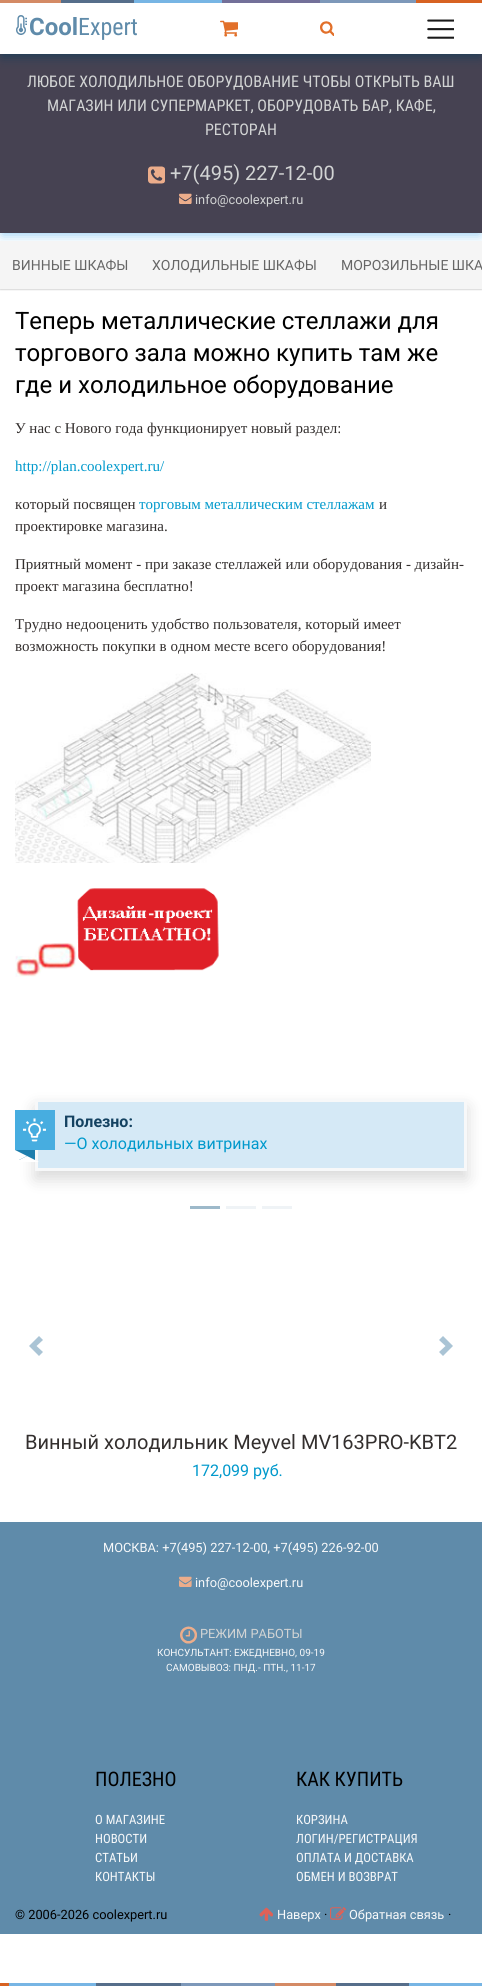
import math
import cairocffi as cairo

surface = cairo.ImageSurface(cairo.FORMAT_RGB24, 482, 1986)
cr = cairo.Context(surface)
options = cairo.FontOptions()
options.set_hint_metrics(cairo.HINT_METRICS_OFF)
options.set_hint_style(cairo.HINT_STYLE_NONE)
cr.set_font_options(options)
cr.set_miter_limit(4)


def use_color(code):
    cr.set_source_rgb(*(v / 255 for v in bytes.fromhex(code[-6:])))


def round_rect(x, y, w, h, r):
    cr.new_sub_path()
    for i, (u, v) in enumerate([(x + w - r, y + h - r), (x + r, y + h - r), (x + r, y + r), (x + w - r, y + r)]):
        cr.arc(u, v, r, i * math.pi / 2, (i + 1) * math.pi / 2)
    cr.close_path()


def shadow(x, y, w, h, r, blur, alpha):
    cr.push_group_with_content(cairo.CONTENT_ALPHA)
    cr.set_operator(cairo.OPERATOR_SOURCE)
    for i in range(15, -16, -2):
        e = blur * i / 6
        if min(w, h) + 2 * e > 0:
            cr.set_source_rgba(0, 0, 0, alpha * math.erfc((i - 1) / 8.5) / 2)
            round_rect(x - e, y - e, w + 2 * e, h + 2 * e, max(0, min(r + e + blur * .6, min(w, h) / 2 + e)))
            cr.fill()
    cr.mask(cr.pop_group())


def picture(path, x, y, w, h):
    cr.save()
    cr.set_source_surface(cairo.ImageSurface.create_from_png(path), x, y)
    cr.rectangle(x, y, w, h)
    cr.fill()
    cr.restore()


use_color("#ffffff")
cr.paint()
use_color("#76c0f1")
shadow(2, 60, 478, 175, 0, 6, 0.75)
use_color("#464252")
cr.rectangle(0, 54, 482, 179)
cr.fill()
use_color("#093a5b")
shadow(2, 6, 478, 50, 0, 6, 0.75)
use_color("#ffffff")
cr.rectangle(0, 3, 482, 51)
cr.fill()
picture("img1.png", 0, 0, 482, 3)
picture("img2.png", 16, 15, 11, 20)
cr.select_font_face("Roboto", cairo.FONT_SLANT_NORMAL, cairo.FONT_WEIGHT_BOLD)
cr.set_font_size(24)
use_color("#5f8baa")
cr.move_to(29, 35)
cr.show_text("Cool")
cr.select_font_face("Roboto Condensed")
cr.move_to(78, 35)
cr.show_text("Expert")
picture("img3.png", 220, 20, 18, 17)
picture("img4.png", 320, 21, 14, 15)
picture("img5.png", 427, 19, 27, 20)
cr.set_font_size(16)
use_color("#d2d4d4")
cr.move_to(27, 87)
cr.show_text("ЛЮБОЕ ХОЛОДИЛЬНОЕ ОБОРУДОВАНИЕ ЧТОБЫ ОТКРЫТЬ ВАШ")
cr.move_to(47, 111)
cr.show_text("МАГАЗИН ИЛИ СУПЕРМАРКЕТ, ОБОРУДОВАТЬ БАР, КАФЕ,")
cr.move_to(205, 135)
cr.show_text("РЕСТОРАН")
picture("img6.png", 148, 166, 17, 18)
cr.select_font_face("Roboto")
cr.set_font_size(20)
cr.move_to(170, 180)
cr.show_text("+7(495) 227-12-00")
picture("img7.png", 179, 193, 13, 11)
cr.set_font_size(12.8)
cr.move_to(195, 204)
cr.show_text("info@coolexpert.ru")
use_color("#000000")
shadow(0, 242, 482, 48, 0, 0.5, 0.15)
use_color("#f5f5f5")
cr.rectangle(0, 241, 482, 48)
cr.fill()
cr.set_font_size(14)
use_color("#666666")
cr.move_to(12, 270)
cr.show_text("ВИННЫЕ ШКАФЫ")
cr.move_to(152, 270)
cr.show_text("ХОЛОДИЛЬНЫЕ ШКАФЫ")
cr.move_to(341, 270)
cr.show_text("МОРОЗИЛЬНЫЕ ШКА")
cr.set_font_size(24)
use_color("#000000")
cr.move_to(15, 329)
cr.show_text("Теперь металлические стеллажи для")
cr.move_to(15, 361)
cr.show_text("торгового зала можно купить там же")
cr.move_to(15, 393)
cr.show_text("где и холодильное оборудование")
cr.select_font_face("Liberation Serif")
cr.set_font_size(15)
use_color("#332f2e")
cr.move_to(15, 433)
cr.show_text("У нас с Нового года функционирует новый раздел:")
use_color("#0099cc")
cr.move_to(15, 471)
cr.show_text("http://plan.coolexpert.ru/")
use_color("#332f2e")
cr.move_to(15, 509)
cr.show_text("который посвящен")
use_color("#0099cc")
cr.move_to(139, 509)
cr.show_text("торговым металлическим стеллажам")
use_color("#332f2e")
cr.move_to(379, 509)
cr.show_text("и")
cr.move_to(15, 531)
cr.show_text("проектировке магазина.")
cr.move_to(15, 569)
cr.show_text("Приятный момент - при заказе стеллажей или оборудования - дизайн-")
cr.move_to(15, 591)
cr.show_text("проект магазина бесплатно!")
cr.move_to(15, 629)
cr.show_text("Трудно недооценить удобство пользователя, который имеет")
cr.move_to(15, 651)
cr.show_text("возможность покупки в одном месте всего оборудования!")
picture("img8.png", 15, 673, 356, 190)
picture("img9.png", 15, 888, 204, 89)
use_color("#000000")
shadow(35, 1107, 432, 72, 0, 8, 0.15)
use_color("#f7f8f9")
cr.rectangle(35, 1099, 432, 72)
cr.fill()
use_color("#d5e9f6")
cr.rectangle(38, 1102, 426, 66)
cr.fill()
use_color("#47ade0")
cr.rectangle(15, 1110, 40, 40)
cr.fill()
picture("img10.png", 23, 1118, 23, 24)
use_color("#1d7ead")
cr.rectangle(15, 1150, 20, 10)
cr.fill()
use_color("#ffffff")
cr.new_path()
cr.move_to(39, 1162)
cr.line_to(15, 1162)
cr.line_to(27, 1156)
cr.close_path()
cr.fill()
cr.new_path()
cr.move_to(15, 1162)
cr.line_to(15, 1150)
cr.line_to(27, 1156)
cr.close_path()
cr.fill()
cr.select_font_face("Roboto", cairo.FONT_SLANT_NORMAL, cairo.FONT_WEIGHT_BOLD)
cr.set_font_size(16)
use_color("#144261")
cr.move_to(64, 1127)
cr.show_text("Полезно:")
cr.select_font_face("Roboto")
use_color("#0099cc")
cr.move_to(64, 1149)
cr.show_text("—О холодильных витринах")
use_color("#9db9ca")
cr.rectangle(190, 1206, 30, 3)
cr.fill()
use_color("#eff3f6")
cr.rectangle(226, 1206, 30, 3)
cr.fill()
cr.rectangle(262, 1206, 30, 3)
cr.fill()
use_color("#aac4d5")
cr.new_path()
cr.move_to(39, 1336)
cr.line_to(29, 1346)
cr.line_to(39, 1356)
cr.line_to(43, 1352)
cr.line_to(36.5, 1346)
cr.line_to(43, 1340)
cr.close_path()
cr.fill()
cr.new_path()
cr.move_to(443, 1336)
cr.line_to(439, 1340)
cr.line_to(445.5, 1346)
cr.line_to(439, 1352)
cr.line_to(443, 1356)
cr.line_to(453, 1346)
cr.close_path()
cr.fill()
cr.set_font_size(20)
use_color("#332f2e")
cr.move_to(25, 1449)
cr.show_text("Винный холодильник Meyvel MV163PRO-KBT2")
cr.set_font_size(16)
use_color("#0099cc")
cr.move_to(192, 1476)
cr.show_text("172,099 руб.")
use_color("#5f8baa")
cr.rectangle(0, 1522, 482, 412)
cr.fill()
cr.set_font_size(12.8)
use_color("#f8f9fa")
cr.move_to(103, 1552)
cr.show_text("МОСКВА: +7(495) 227-12-00, +7(495) 226-92-00")
picture("img11.png", 179, 1576, 13, 11)
cr.move_to(195, 1587)
cr.show_text("info@coolexpert.ru")
picture("img12.png", 180, 1626, 17, 18)
use_color("#d2d4d4")
cr.move_to(200, 1638)
cr.show_text("РЕЖИМ РАБОТЫ")
cr.set_font_size(10)
use_color("#f8f9fa")
cr.move_to(157, 1656)
cr.show_text("КОНСУЛЬТАНТ: ЕЖЕДНЕВНО, 09-19")
cr.move_to(166, 1671)
cr.show_text("САМОВЫВОЗ: ПНД.- ПТН., 11-17")
cr.select_font_face("Roboto Condensed")
cr.set_font_size(20)
use_color("#000000")
cr.move_to(95, 1786)
cr.show_text("ПОЛЕЗНО")
cr.set_font_size(12.8)
use_color("#f8f9fa")
cr.move_to(95, 1824)
cr.show_text("О МАГАЗИНЕ")
cr.move_to(95, 1843)
cr.show_text("НОВОСТИ")
cr.move_to(95, 1862)
cr.show_text("СТАТЬИ")
cr.move_to(95, 1881)
cr.show_text("КОНТАКТЫ")
cr.set_font_size(20)
use_color("#000000")
cr.move_to(296, 1786)
cr.show_text("КАК КУПИТЬ")
cr.set_font_size(12.8)
use_color("#f8f9fa")
cr.move_to(296, 1824)
cr.show_text("КОРЗИНА")
cr.move_to(296, 1843)
cr.show_text("ЛОГИН/РЕГИСТРАЦИЯ")
cr.move_to(296, 1862)
cr.show_text("ОПЛАТА И ДОСТАВКА")
cr.move_to(296, 1881)
cr.show_text("ОБМЕН И ВОЗВРАТ")
cr.select_font_face("Roboto")
use_color("#000000")
cr.move_to(15, 1919)
cr.show_text("© 2006-2026 coolexpert.ru")
picture("img13.png", 259, 1907, 14, 14)
use_color("#f8f9fa")
cr.move_to(277, 1919)
cr.show_text("Наверх")
use_color("#000000")
cr.move_to(324, 1919)
cr.show_text("·")
picture("img14.png", 330, 1907, 16, 13)
use_color("#f8f9fa")
cr.move_to(349, 1919)
cr.show_text("Обратная связь")
use_color("#000000")
cr.move_to(448, 1919)
cr.show_text("·")
picture("img15.png", 0, 1983, 482, 3)
surface.write_to_png("result.png")
